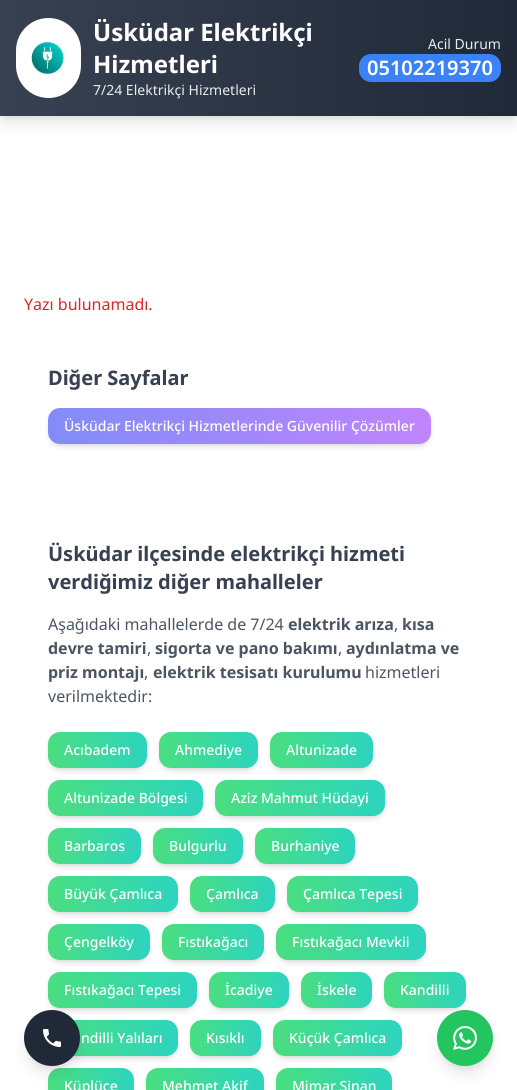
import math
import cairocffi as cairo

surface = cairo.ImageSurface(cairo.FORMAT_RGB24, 517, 1090)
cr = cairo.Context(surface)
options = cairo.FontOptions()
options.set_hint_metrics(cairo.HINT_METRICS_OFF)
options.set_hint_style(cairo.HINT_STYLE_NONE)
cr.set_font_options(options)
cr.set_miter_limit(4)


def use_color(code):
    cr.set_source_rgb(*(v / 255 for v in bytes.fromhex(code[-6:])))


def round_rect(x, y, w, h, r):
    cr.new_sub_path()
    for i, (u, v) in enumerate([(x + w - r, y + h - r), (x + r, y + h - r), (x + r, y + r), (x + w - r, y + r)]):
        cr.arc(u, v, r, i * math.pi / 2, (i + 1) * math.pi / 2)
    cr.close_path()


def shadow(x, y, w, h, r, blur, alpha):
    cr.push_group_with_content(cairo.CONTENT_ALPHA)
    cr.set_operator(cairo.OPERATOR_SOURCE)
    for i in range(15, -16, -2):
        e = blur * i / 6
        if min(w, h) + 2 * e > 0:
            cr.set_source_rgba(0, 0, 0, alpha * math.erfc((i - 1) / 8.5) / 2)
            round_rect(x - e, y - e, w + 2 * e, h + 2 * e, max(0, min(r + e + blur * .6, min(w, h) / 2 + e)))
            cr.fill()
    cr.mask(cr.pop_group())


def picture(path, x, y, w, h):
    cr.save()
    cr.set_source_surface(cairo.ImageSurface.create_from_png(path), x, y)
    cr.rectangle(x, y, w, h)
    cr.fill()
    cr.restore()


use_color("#f9fafb")
cr.paint()
use_color("#ffffff")
round_rect(0, 116, 517, 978, 4)
cr.fill()
use_color("#000000")
shadow(4, 8, 509, 108, 0, 3, 0.1)
shadow(3, 13, 511, 110, 0, 7.5, 0.1)
gradient = cairo.LinearGradient(0, 58, 517, 58)
gradient.add_color_stop_rgba(0, 0.216, 0.255, 0.318, 1)
gradient.add_color_stop_rgba(1, 0.122, 0.161, 0.216, 1)
cr.set_source(gradient)
cr.rectangle(0, 0, 517, 116)
cr.fill()
use_color("#ffffff")
round_rect(16, 18, 65, 80, 32.5)
cr.fill()
picture("img1.png", 31, 41, 33, 34)
cr.select_font_face("Noto Sans", cairo.FONT_SLANT_NORMAL, cairo.FONT_WEIGHT_BOLD)
cr.set_font_size(24)
cr.move_to(93, 41)
cr.show_text("Üsküdar Elektrikçi")
cr.move_to(93, 73)
cr.show_text("Hizmetleri")
cr.select_font_face("Noto Sans")
cr.set_font_size(14)
use_color("#eaebed")
cr.move_to(93, 95)
cr.show_text("7/24 Elektrikçi Hizmetleri")
cr.move_to(428, 49)
cr.show_text("Acil Durum")
use_color("#3b82f6")
round_rect(359, 54, 142, 28, 12)
cr.fill()
cr.select_font_face("Noto Sans SemiBold")
cr.set_font_size(20)
use_color("#ffffff")
cr.move_to(367, 75)
cr.show_text("05102219370")
cr.select_font_face("Noto Sans")
cr.set_font_size(16)
use_color("#dc2626")
cr.move_to(24, 310)
cr.show_text("Yazı bulunamadı.")
cr.select_font_face("Noto Sans", cairo.FONT_SLANT_NORMAL, cairo.FONT_WEIGHT_BOLD)
cr.set_font_size(20)
use_color("#374151")
cr.move_to(48, 385)
cr.show_text("Diğer Sayfalar")
use_color("#000000")
shadow(50, 412, 379, 32, 10, 2, 0.1)
shadow(49, 413, 381, 34, 11, 3, 0.1)
gradient = cairo.LinearGradient(48, 426, 431, 426)
gradient.add_color_stop_rgba(0, 0.506, 0.549, 0.973, 1)
gradient.add_color_stop_rgba(1, 0.753, 0.518, 0.988, 1)
cr.set_source(gradient)
round_rect(48, 408, 383, 36, 12)
cr.fill()
cr.select_font_face("Noto Sans Medium")
cr.set_font_size(14)
use_color("#ffffff")
cr.move_to(64, 431)
cr.show_text("Üsküdar Elektrikçi Hizmetlerinde Güvenilir Çözümler")
cr.select_font_face("Noto Sans", cairo.FONT_SLANT_NORMAL, cairo.FONT_WEIGHT_BOLD)
cr.set_font_size(20)
use_color("#374151")
cr.move_to(48, 561)
cr.show_text("Üsküdar ilçesinde elektrikçi hizmeti")
cr.move_to(48, 589)
cr.show_text("verdiğimiz diğer mahalleler")
cr.select_font_face("Noto Sans")
cr.set_font_size(16)
use_color("#4b5563")
cr.move_to(48, 630)
cr.show_text("Aşağıdaki mahallelerde de 7/24")
cr.select_font_face("Noto Sans", cairo.FONT_SLANT_NORMAL, cairo.FONT_WEIGHT_BOLD)
cr.move_to(288, 630)
cr.show_text("elektrik arıza")
cr.select_font_face("Noto Sans")
cr.move_to(394, 630)
cr.show_text(",")
cr.select_font_face("Noto Sans", cairo.FONT_SLANT_NORMAL, cairo.FONT_WEIGHT_BOLD)
cr.move_to(402, 630)
cr.show_text("kısa")
cr.move_to(48, 654)
cr.show_text("devre tamiri")
cr.select_font_face("Noto Sans")
cr.move_to(147, 654)
cr.show_text(",")
cr.select_font_face("Noto Sans", cairo.FONT_SLANT_NORMAL, cairo.FONT_WEIGHT_BOLD)
cr.move_to(155, 654)
cr.show_text("sigorta ve pano bakımı")
cr.select_font_face("Noto Sans")
cr.move_to(338, 654)
cr.show_text(",")
cr.select_font_face("Noto Sans", cairo.FONT_SLANT_NORMAL, cairo.FONT_WEIGHT_BOLD)
cr.move_to(346, 654)
cr.show_text("aydınlatma ve")
cr.move_to(48, 678)
cr.show_text("priz montajı")
cr.select_font_face("Noto Sans")
cr.move_to(144, 678)
cr.show_text(",")
cr.select_font_face("Noto Sans", cairo.FONT_SLANT_NORMAL, cairo.FONT_WEIGHT_BOLD)
cr.move_to(153, 678)
cr.show_text("elektrik tesisatı kurulumu")
cr.select_font_face("Noto Sans")
cr.move_to(365, 678)
cr.show_text("hizmetleri")
cr.move_to(48, 702)
cr.show_text("verilmektedir:")
use_color("#000000")
shadow(50, 736, 95, 32, 10, 2, 0.1)
shadow(49, 737, 97, 34, 11, 3, 0.1)
gradient = cairo.LinearGradient(48, 750, 147, 750)
gradient.add_color_stop_rgba(0, 0.29, 0.871, 0.502, 1)
gradient.add_color_stop_rgba(1, 0.176, 0.831, 0.749, 1)
cr.set_source(gradient)
round_rect(48, 732, 99, 36, 12)
cr.fill()
cr.select_font_face("Noto Sans Medium")
cr.set_font_size(14)
use_color("#ffffff")
cr.move_to(64, 755)
cr.show_text("Acıbadem")
use_color("#000000")
shadow(161, 736, 95, 32, 10, 2, 0.1)
shadow(160, 737, 97, 34, 11, 3, 0.1)
gradient = cairo.LinearGradient(159, 750, 258, 750)
gradient.add_color_stop_rgba(0, 0.29, 0.871, 0.502, 1)
gradient.add_color_stop_rgba(1, 0.176, 0.831, 0.749, 1)
cr.set_source(gradient)
round_rect(159, 732, 99, 36, 12)
cr.fill()
use_color("#ffffff")
cr.move_to(175, 755)
cr.show_text("Ahmediye")
use_color("#000000")
shadow(272, 736, 99, 32, 10, 2, 0.1)
shadow(271, 737, 101, 34, 11, 3, 0.1)
gradient = cairo.LinearGradient(270, 750, 373, 750)
gradient.add_color_stop_rgba(0, 0.29, 0.871, 0.502, 1)
gradient.add_color_stop_rgba(1, 0.176, 0.831, 0.749, 1)
cr.set_source(gradient)
round_rect(270, 732, 103, 36, 12)
cr.fill()
use_color("#ffffff")
cr.move_to(286, 755)
cr.show_text("Altunizade")
use_color("#000000")
shadow(50, 784, 151, 32, 10, 2, 0.1)
shadow(49, 785, 153, 34, 11, 3, 0.1)
gradient = cairo.LinearGradient(48, 798, 203, 798)
gradient.add_color_stop_rgba(0, 0.29, 0.871, 0.502, 1)
gradient.add_color_stop_rgba(1, 0.176, 0.831, 0.749, 1)
cr.set_source(gradient)
round_rect(48, 780, 155, 36, 12)
cr.fill()
use_color("#ffffff")
cr.move_to(64, 803)
cr.show_text("Altunizade Bölgesi")
use_color("#000000")
shadow(217, 784, 166, 32, 10, 2, 0.1)
shadow(216, 785, 168, 34, 11, 3, 0.1)
gradient = cairo.LinearGradient(215, 798, 385, 798)
gradient.add_color_stop_rgba(0, 0.29, 0.871, 0.502, 1)
gradient.add_color_stop_rgba(1, 0.176, 0.831, 0.749, 1)
cr.set_source(gradient)
round_rect(215, 780, 170, 36, 12)
cr.fill()
use_color("#ffffff")
cr.move_to(231, 803)
cr.show_text("Aziz Mahmut Hüdayi")
use_color("#000000")
shadow(50, 832, 89, 32, 10, 2, 0.1)
shadow(49, 833, 91, 34, 11, 3, 0.1)
gradient = cairo.LinearGradient(48, 846, 141, 846)
gradient.add_color_stop_rgba(0, 0.29, 0.871, 0.502, 1)
gradient.add_color_stop_rgba(1, 0.176, 0.831, 0.749, 1)
cr.set_source(gradient)
round_rect(48, 828, 93, 36, 12)
cr.fill()
use_color("#ffffff")
cr.move_to(64, 851)
cr.show_text("Barbaros")
use_color("#000000")
shadow(155, 832, 86, 32, 10, 2, 0.1)
shadow(154, 833, 88, 34, 11, 3, 0.1)
gradient = cairo.LinearGradient(153, 846, 243, 846)
gradient.add_color_stop_rgba(0, 0.29, 0.871, 0.502, 1)
gradient.add_color_stop_rgba(1, 0.176, 0.831, 0.749, 1)
cr.set_source(gradient)
round_rect(153, 828, 90, 36, 12)
cr.fill()
use_color("#ffffff")
cr.move_to(169, 851)
cr.show_text("Bulgurlu")
use_color("#000000")
shadow(257, 832, 96, 32, 10, 2, 0.1)
shadow(256, 833, 98, 34, 11, 3, 0.1)
gradient = cairo.LinearGradient(255, 846, 355, 846)
gradient.add_color_stop_rgba(0, 0.29, 0.871, 0.502, 1)
gradient.add_color_stop_rgba(1, 0.176, 0.831, 0.749, 1)
cr.set_source(gradient)
round_rect(255, 828, 100, 36, 12)
cr.fill()
use_color("#ffffff")
cr.move_to(271, 851)
cr.show_text("Burhaniye")
use_color("#000000")
shadow(50, 880, 126, 32, 10, 2, 0.1)
shadow(49, 881, 128, 34, 11, 3, 0.1)
gradient = cairo.LinearGradient(48, 894, 178, 894)
gradient.add_color_stop_rgba(0, 0.29, 0.871, 0.502, 1)
gradient.add_color_stop_rgba(1, 0.176, 0.831, 0.749, 1)
cr.set_source(gradient)
round_rect(48, 876, 130, 36, 12)
cr.fill()
use_color("#ffffff")
cr.move_to(64, 899)
cr.show_text("Büyük Çamlıca")
use_color("#000000")
shadow(192, 880, 81, 32, 10, 2, 0.1)
shadow(191, 881, 83, 34, 11, 3, 0.1)
gradient = cairo.LinearGradient(190, 894, 275, 894)
gradient.add_color_stop_rgba(0, 0.29, 0.871, 0.502, 1)
gradient.add_color_stop_rgba(1, 0.176, 0.831, 0.749, 1)
cr.set_source(gradient)
round_rect(190, 876, 85, 36, 12)
cr.fill()
use_color("#ffffff")
cr.move_to(206, 899)
cr.show_text("Çamlıca")
use_color("#000000")
shadow(289, 880, 127, 32, 10, 2, 0.1)
shadow(288, 881, 129, 34, 11, 3, 0.1)
gradient = cairo.LinearGradient(287, 894, 418, 894)
gradient.add_color_stop_rgba(0, 0.29, 0.871, 0.502, 1)
gradient.add_color_stop_rgba(1, 0.176, 0.831, 0.749, 1)
cr.set_source(gradient)
round_rect(287, 876, 131, 36, 12)
cr.fill()
use_color("#ffffff")
cr.move_to(303, 899)
cr.show_text("Çamlıca Tepesi")
use_color("#000000")
shadow(50, 928, 98, 32, 10, 2, 0.1)
shadow(49, 929, 100, 34, 11, 3, 0.1)
gradient = cairo.LinearGradient(48, 942, 150, 942)
gradient.add_color_stop_rgba(0, 0.29, 0.871, 0.502, 1)
gradient.add_color_stop_rgba(1, 0.176, 0.831, 0.749, 1)
cr.set_source(gradient)
round_rect(48, 924, 102, 36, 12)
cr.fill()
use_color("#ffffff")
cr.move_to(64, 947)
cr.show_text("Çengelköy")
use_color("#000000")
shadow(164, 928, 98, 32, 10, 2, 0.1)
shadow(163, 929, 100, 34, 11, 3, 0.1)
gradient = cairo.LinearGradient(162, 942, 264, 942)
gradient.add_color_stop_rgba(0, 0.29, 0.871, 0.502, 1)
gradient.add_color_stop_rgba(1, 0.176, 0.831, 0.749, 1)
cr.set_source(gradient)
round_rect(162, 924, 102, 36, 12)
cr.fill()
use_color("#ffffff")
cr.move_to(178, 947)
cr.show_text("Fıstıkağacı")
use_color("#000000")
shadow(278, 928, 146, 32, 10, 2, 0.1)
shadow(277, 929, 148, 34, 11, 3, 0.1)
gradient = cairo.LinearGradient(276, 942, 426, 942)
gradient.add_color_stop_rgba(0, 0.29, 0.871, 0.502, 1)
gradient.add_color_stop_rgba(1, 0.176, 0.831, 0.749, 1)
cr.set_source(gradient)
round_rect(276, 924, 150, 36, 12)
cr.fill()
use_color("#ffffff")
cr.move_to(292, 947)
cr.show_text("Fıstıkağacı Mevkii")
use_color("#000000")
shadow(50, 976, 145, 32, 10, 2, 0.1)
shadow(49, 977, 147, 34, 11, 3, 0.1)
gradient = cairo.LinearGradient(48, 990, 197, 990)
gradient.add_color_stop_rgba(0, 0.29, 0.871, 0.502, 1)
gradient.add_color_stop_rgba(1, 0.176, 0.831, 0.749, 1)
cr.set_source(gradient)
round_rect(48, 972, 149, 36, 12)
cr.fill()
use_color("#ffffff")
cr.move_to(64, 995)
cr.show_text("Fıstıkağacı Tepesi")
use_color("#000000")
shadow(211, 976, 76, 32, 10, 2, 0.1)
shadow(210, 977, 78, 34, 11, 3, 0.1)
gradient = cairo.LinearGradient(209, 990, 289, 990)
gradient.add_color_stop_rgba(0, 0.29, 0.871, 0.502, 1)
gradient.add_color_stop_rgba(1, 0.176, 0.831, 0.749, 1)
cr.set_source(gradient)
round_rect(209, 972, 80, 36, 12)
cr.fill()
use_color("#ffffff")
cr.move_to(225, 995)
cr.show_text("İcadiye")
use_color("#000000")
shadow(303, 976, 67, 32, 10, 2, 0.1)
shadow(302, 977, 69, 34, 11, 3, 0.1)
gradient = cairo.LinearGradient(301, 990, 372, 990)
gradient.add_color_stop_rgba(0, 0.29, 0.871, 0.502, 1)
gradient.add_color_stop_rgba(1, 0.176, 0.831, 0.749, 1)
cr.set_source(gradient)
round_rect(301, 972, 71, 36, 12)
cr.fill()
use_color("#ffffff")
cr.move_to(317, 995)
cr.show_text("İskele")
use_color("#000000")
shadow(386, 976, 78, 32, 10, 2, 0.1)
shadow(385, 977, 80, 34, 11, 3, 0.1)
gradient = cairo.LinearGradient(384, 990, 466, 990)
gradient.add_color_stop_rgba(0, 0.29, 0.871, 0.502, 1)
gradient.add_color_stop_rgba(1, 0.176, 0.831, 0.749, 1)
cr.set_source(gradient)
round_rect(384, 972, 82, 36, 12)
cr.fill()
use_color("#ffffff")
cr.move_to(400, 995)
cr.show_text("Kandilli")
use_color("#000000")
shadow(50, 1024, 126, 32, 10, 2, 0.1)
shadow(49, 1025, 128, 34, 11, 3, 0.1)
gradient = cairo.LinearGradient(48, 1038, 178, 1038)
gradient.add_color_stop_rgba(0, 0.29, 0.871, 0.502, 1)
gradient.add_color_stop_rgba(1, 0.176, 0.831, 0.749, 1)
cr.set_source(gradient)
round_rect(48, 1020, 130, 36, 12)
cr.fill()
use_color("#ffffff")
cr.move_to(81, 1043)
cr.show_text("ndilli Yalıları")
use_color("#000000")
shadow(192, 1024, 67, 32, 10, 2, 0.1)
shadow(191, 1025, 69, 34, 11, 3, 0.1)
gradient = cairo.LinearGradient(190, 1038, 261, 1038)
gradient.add_color_stop_rgba(0, 0.29, 0.871, 0.502, 1)
gradient.add_color_stop_rgba(1, 0.176, 0.831, 0.749, 1)
cr.set_source(gradient)
round_rect(190, 1020, 71, 36, 12)
cr.fill()
use_color("#ffffff")
cr.move_to(206, 1043)
cr.show_text("Kısıklı")
use_color("#000000")
shadow(275, 1024, 125, 32, 10, 2, 0.1)
shadow(274, 1025, 127, 34, 11, 3, 0.1)
gradient = cairo.LinearGradient(273, 1038, 402, 1038)
gradient.add_color_stop_rgba(0, 0.29, 0.871, 0.502, 1)
gradient.add_color_stop_rgba(1, 0.176, 0.831, 0.749, 1)
cr.set_source(gradient)
round_rect(273, 1020, 129, 36, 12)
cr.fill()
use_color("#ffffff")
cr.move_to(289, 1043)
cr.show_text("Küçük Çamlıca")
use_color("#000000")
shadow(49, 1073, 84, 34, 11, 3, 0.1)
gradient = cairo.LinearGradient(48, 1086, 134, 1086)
gradient.add_color_stop_rgba(0, 0.29, 0.871, 0.502, 1)
gradient.add_color_stop_rgba(1, 0.176, 0.831, 0.749, 1)
cr.set_source(gradient)
round_rect(48, 1068, 86, 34, 12)
cr.fill()
use_color("#ffffff")
cr.move_to(64, 1091)
cr.show_text("Küplüce")
use_color("#000000")
shadow(147, 1073, 116, 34, 11, 3, 0.1)
gradient = cairo.LinearGradient(146, 1086, 264, 1086)
gradient.add_color_stop_rgba(0, 0.29, 0.871, 0.502, 1)
gradient.add_color_stop_rgba(1, 0.176, 0.831, 0.749, 1)
cr.set_source(gradient)
round_rect(146, 1068, 118, 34, 12)
cr.fill()
use_color("#ffffff")
cr.move_to(162, 1091)
cr.show_text("Mehmet Akif")
use_color("#000000")
shadow(277, 1073, 114, 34, 11, 3, 0.1)
gradient = cairo.LinearGradient(276, 1086, 392, 1086)
gradient.add_color_stop_rgba(0, 0.29, 0.871, 0.502, 1)
gradient.add_color_stop_rgba(1, 0.176, 0.831, 0.749, 1)
cr.set_source(gradient)
round_rect(276, 1068, 116, 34, 12)
cr.fill()
use_color("#ffffff")
cr.move_to(292, 1091)
cr.show_text("Mimar Sinan")
use_color("#000000")
shadow(28, 1018, 48, 48, 24, 3, 0.1)
shadow(27, 1023, 50, 50, 25, 7.5, 0.1)
use_color("#1f2937")
cr.arc(52, 1038, 28, 0, 2 * math.pi)
cr.fill()
picture("img2.png", 43, 1029, 18, 18)
use_color("#000000")
shadow(441, 1018, 48, 48, 24, 3, 0.1)
shadow(440, 1023, 50, 50, 25, 7.5, 0.1)
use_color("#22c55e")
cr.arc(465, 1038, 28, 0, 2 * math.pi)
cr.fill()
picture("img3.png", 453, 1026, 24, 24)
surface.write_to_png("result.png")
